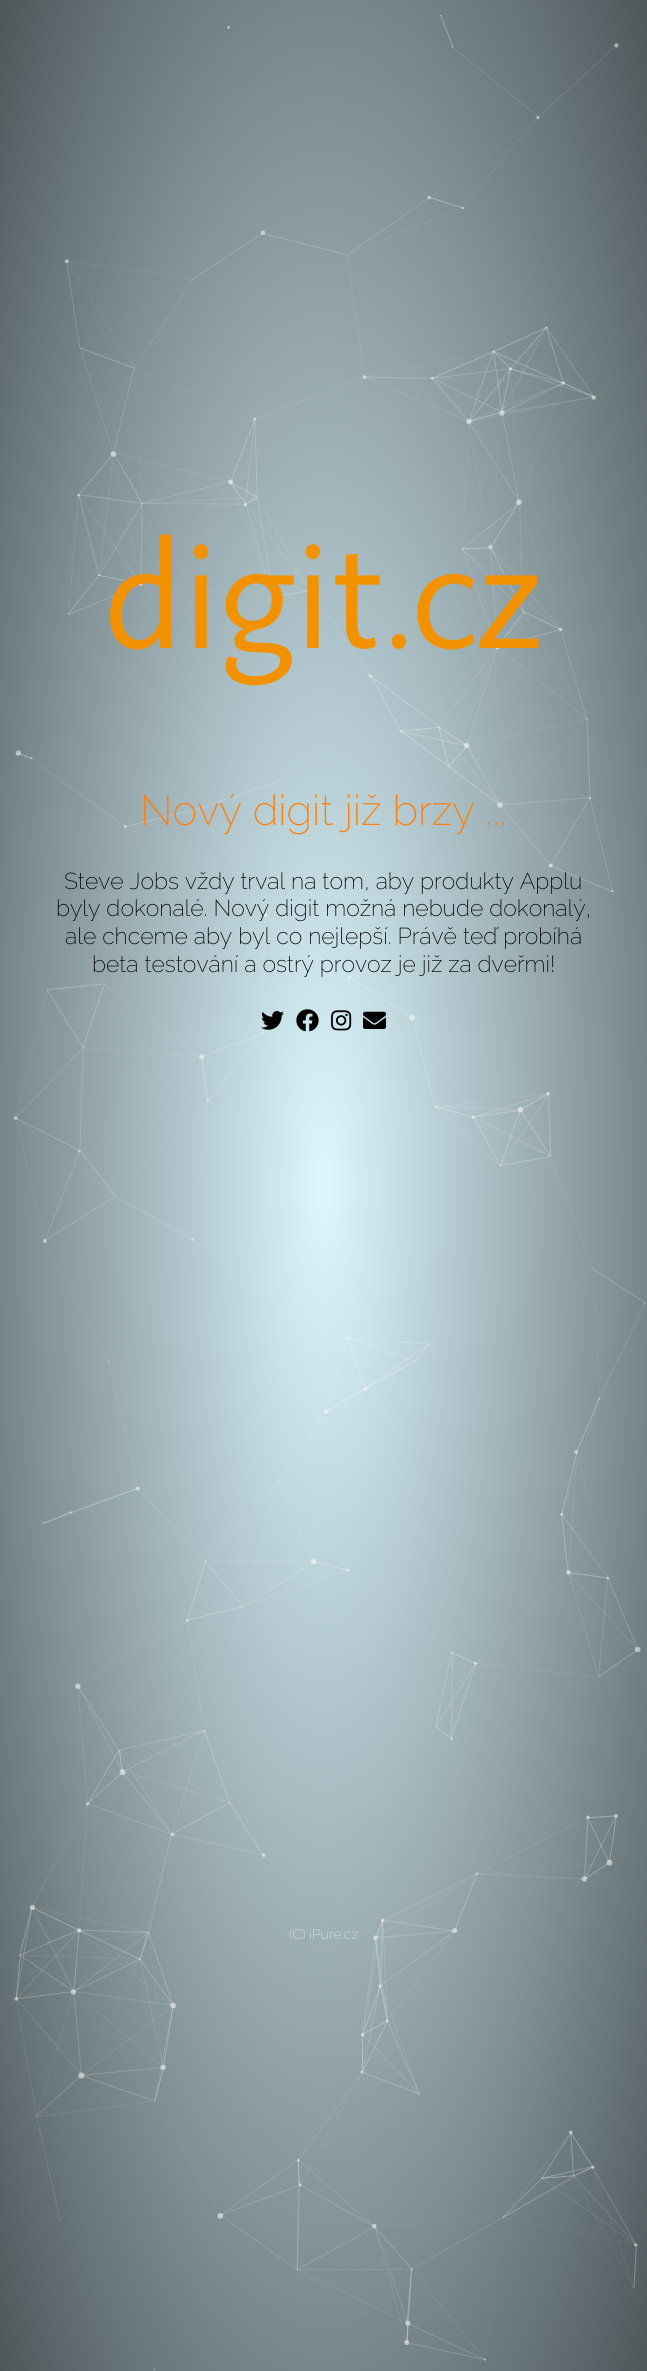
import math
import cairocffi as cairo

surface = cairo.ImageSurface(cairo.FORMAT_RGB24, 647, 2371)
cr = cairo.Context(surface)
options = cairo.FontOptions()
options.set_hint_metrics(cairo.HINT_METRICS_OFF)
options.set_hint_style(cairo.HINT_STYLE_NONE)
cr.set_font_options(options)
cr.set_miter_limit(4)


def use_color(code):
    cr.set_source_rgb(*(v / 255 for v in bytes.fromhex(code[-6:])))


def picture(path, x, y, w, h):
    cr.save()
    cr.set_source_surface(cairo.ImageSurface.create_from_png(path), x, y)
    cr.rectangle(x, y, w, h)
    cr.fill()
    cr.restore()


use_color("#ffffff")
cr.paint()
gradient = cairo.RadialGradient(0, 0, 0, 0, 0, 1)
gradient.set_matrix(cairo.Matrix(1 / 457, 0, 0, 1 / 1677, -1 * 324 / 457, -1 * 1186 / 1677))
gradient.add_color_stop_rgba(0, 0.867, 0.969, 1, 1)
gradient.add_color_stop_rgba(1, 0.302, 0.341, 0.353, 1)
cr.set_source(gradient)
cr.rectangle(0, 0, 647, 2371)
cr.fill()
picture("img1.png", 13, 14, 633, 2357)
picture("img2.png", 109, 534, 430, 152)
cr.select_font_face("Raleway Thin")
cr.set_font_size(42)
use_color("#ff7e08")
cr.move_to(140, 825)
cr.show_text("Nový digit již brzy ...")
cr.set_font_size(23)
use_color("#000000")
cr.move_to(64, 889)
cr.show_text("Steve Jobs vždy trval na tom, aby produkty Applu")
cr.move_to(56, 916)
cr.show_text("byly dokonalé. Nový digit možná nebude dokonalý,")
cr.move_to(65, 944)
cr.show_text("ale chceme aby byl co nejlepší. Právě teď probíhá")
cr.move_to(92, 972)
cr.show_text("beta testování a ostrý provoz je již za dveřmi!")
picture("img3.png", 261, 1011, 23, 19)
picture("img4.png", 296, 1009, 23, 23)
picture("img5.png", 331, 1010, 21, 21)
picture("img6.png", 363, 1011, 23, 18)
cr.set_font_size(14)
use_color("#e1e7e9")
cr.move_to(289, 1939)
cr.show_text("(C) iPure.cz")
surface.write_to_png("result.png")
